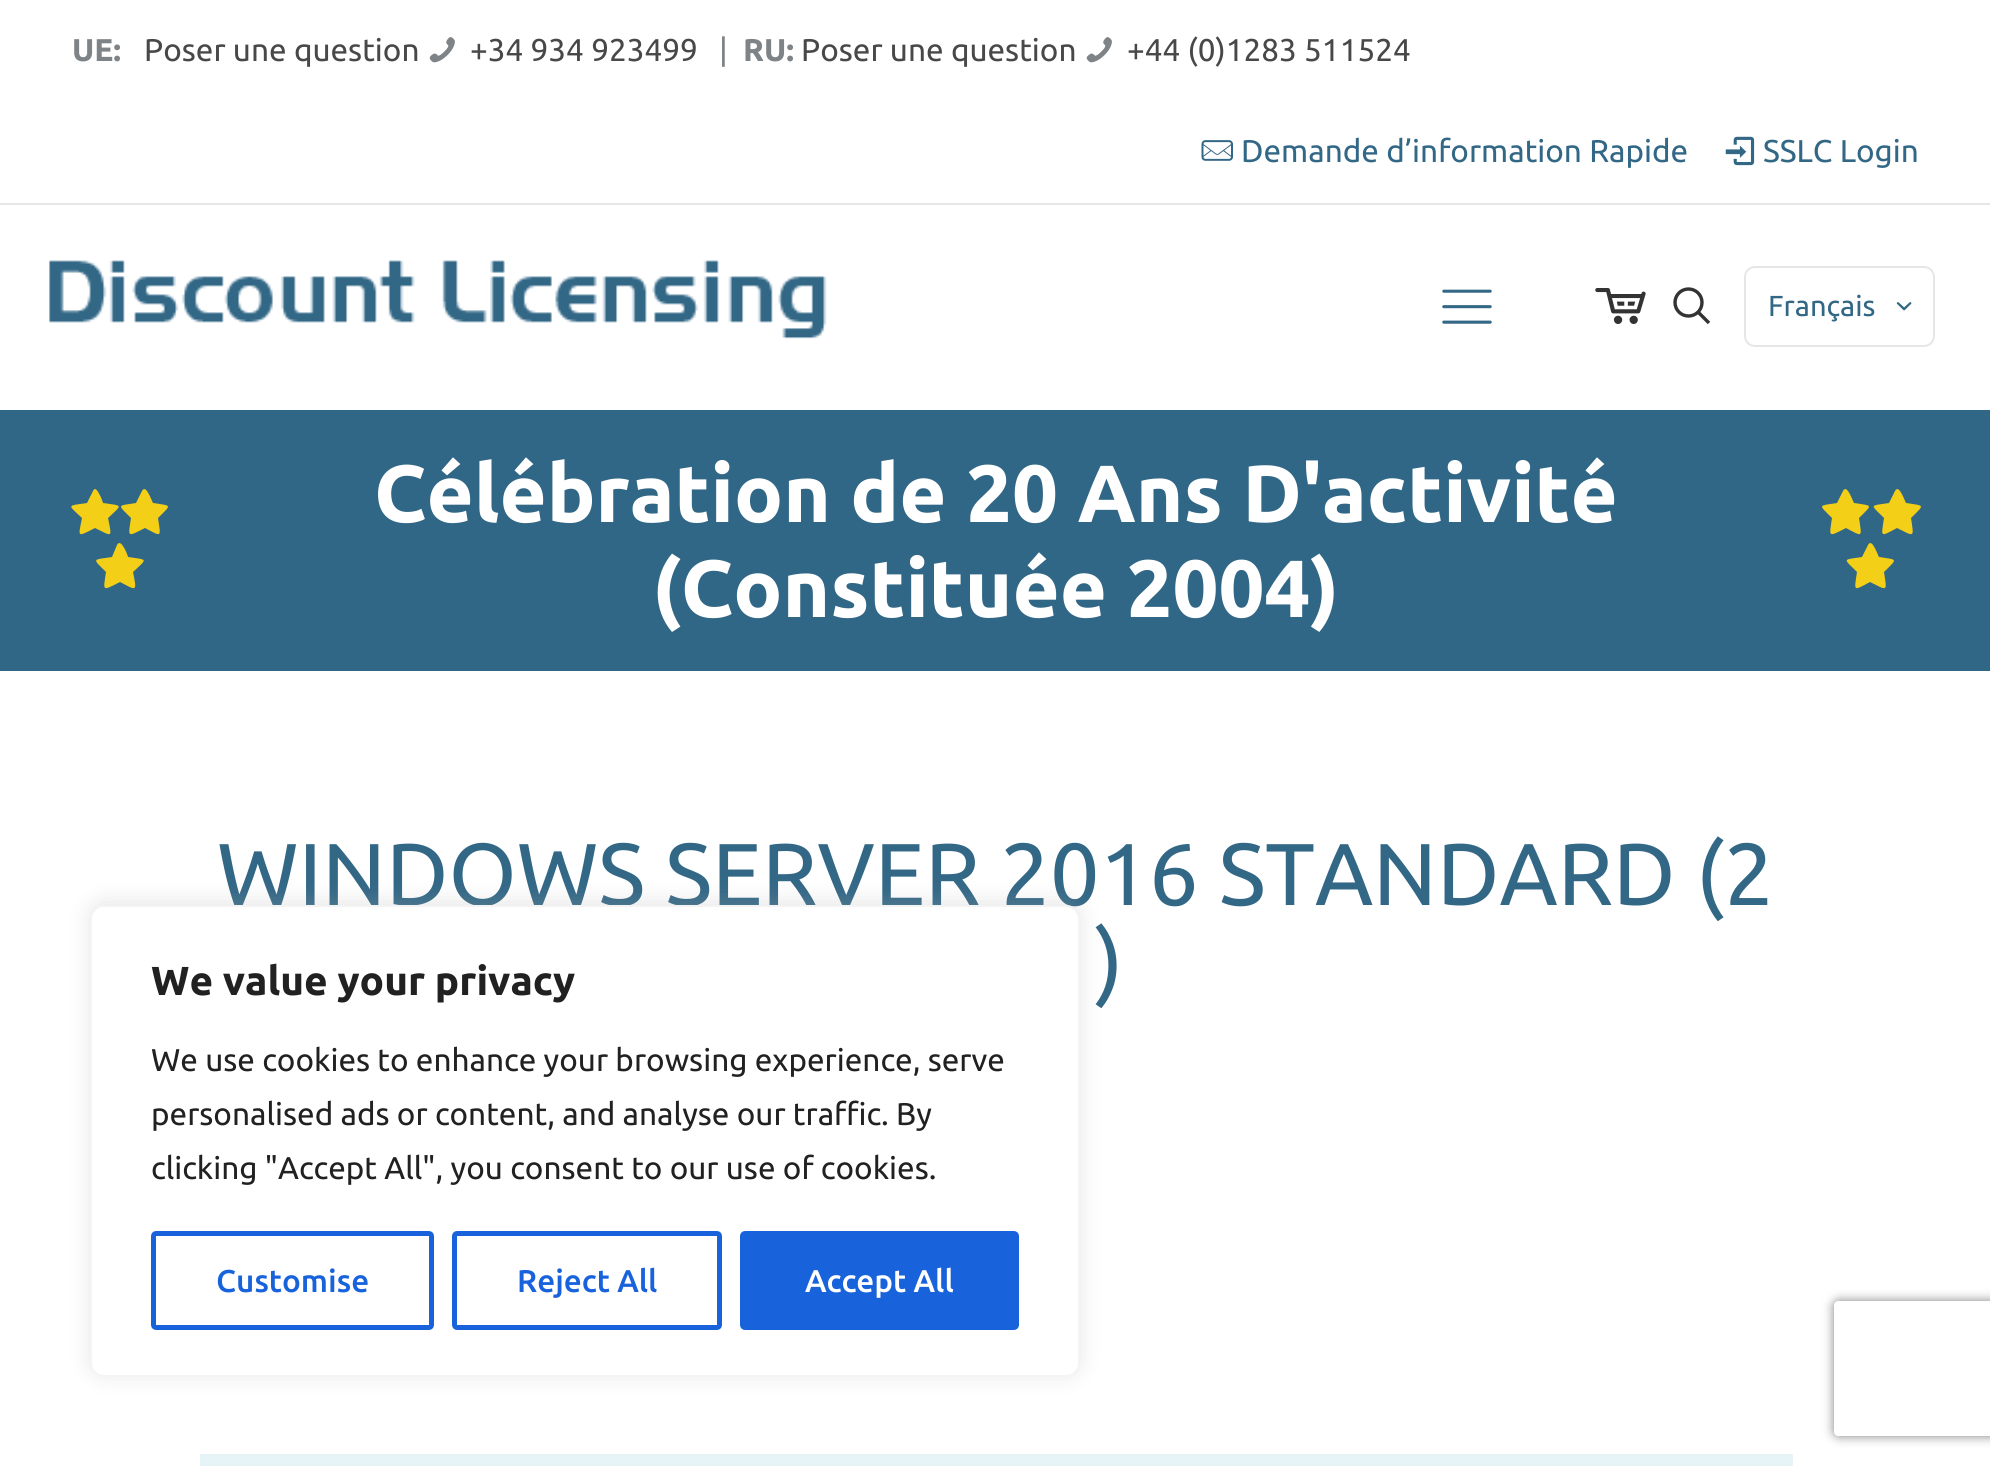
import math
import cairocffi as cairo

surface = cairo.ImageSurface(cairo.FORMAT_RGB24, 1990, 1466)
cr = cairo.Context(surface)
options = cairo.FontOptions()
options.set_hint_metrics(cairo.HINT_METRICS_OFF)
options.set_hint_style(cairo.HINT_STYLE_NONE)
cr.set_font_options(options)
cr.set_miter_limit(4)


def use_color(code):
    cr.set_source_rgb(*(v / 255 for v in bytes.fromhex(code[-6:])))


def round_rect(x, y, w, h, r):
    cr.new_sub_path()
    for i, (u, v) in enumerate([(x + w - r, y + h - r), (x + r, y + h - r), (x + r, y + r), (x + w - r, y + r)]):
        cr.arc(u, v, r, i * math.pi / 2, (i + 1) * math.pi / 2)
    cr.close_path()


def shadow(x, y, w, h, r, blur, alpha):
    cr.push_group_with_content(cairo.CONTENT_ALPHA)
    cr.set_operator(cairo.OPERATOR_SOURCE)
    for i in range(15, -16, -2):
        e = blur * i / 6
        if min(w, h) + 2 * e > 0:
            cr.set_source_rgba(0, 0, 0, alpha * math.erfc((i - 1) / 8.5) / 2)
            round_rect(x - e, y - e, w + 2 * e, h + 2 * e, max(0, min(r + e + blur * .6, min(w, h) / 2 + e)))
            cr.fill()
    cr.mask(cr.pop_group())


def picture(path, x, y, w, h):
    cr.save()
    cr.set_source_surface(cairo.ImageSurface.create_from_png(path), x, y)
    cr.rectangle(x, y, w, h)
    cr.fill()
    cr.restore()


use_color("#ffffff")
cr.paint()
use_color("#e6e6e6")
cr.rectangle(0, 203, 1990, 2)
cr.fill()
cr.select_font_face("Ubuntu", cairo.FONT_SLANT_NORMAL, cairo.FONT_WEIGHT_BOLD)
cr.set_font_size(31.5)
use_color("#7e8387")
cr.move_to(72, 61)
cr.show_text("UE:")
cr.select_font_face("Ubuntu")
use_color("#494848")
cr.move_to(144, 61)
cr.show_text("Poser une question")
picture("img1.png", 429, 37, 26, 26)
cr.move_to(470, 61)
cr.show_text("+34 934 923499")
use_color("#7e8387")
cr.move_to(719, 61)
cr.show_text("|")
cr.select_font_face("Ubuntu", cairo.FONT_SLANT_NORMAL, cairo.FONT_WEIGHT_BOLD)
cr.move_to(743, 61)
cr.show_text("RU:")
cr.select_font_face("Ubuntu")
use_color("#494848")
cr.move_to(801, 61)
cr.show_text("Poser une question")
picture("img1.png", 1086, 37, 26, 26)
cr.move_to(1127, 61)
cr.show_text("+44 (0)1283 511524")
picture("img2.png", 1201, 140, 32, 21)
use_color("#326786")
cr.move_to(1241, 162)
cr.show_text("Demande d’information Rapide")
picture("img3.png", 1725, 136, 30, 30)
cr.move_to(1763, 162)
cr.show_text("SSLC Login")
picture("img4.png", 49, 260, 778, 79)
picture("img5.png", 1442, 289, 50, 35)
picture("img6.png", 1595, 288, 51, 36)
cr.arc(1688.5, 302.5, 13.5, 0, 2 * math.pi)
use_color("#333333")
cr.set_line_width(3.4)
cr.stroke()
cr.new_path()
cr.move_to(1698, 312)
cr.line_to(1709, 323)
cr.stroke()
round_rect(1745, 267, 189, 79, 10)
use_color("#e6e6e6")
cr.set_line_width(2)
cr.stroke()
cr.set_font_size(29)
use_color("#326786")
cr.move_to(1768, 316)
cr.show_text("Français")
picture("img7.png", 1896, 302, 16, 9)
use_color("#316786")
cr.rectangle(0, 410, 1990, 261)
cr.fill()
use_color("#f4cf18")
cr.new_path()
cr.move_to(93, 491)
cr.curve_to(96, 483, 103, 502, 103, 503)
cr.curve_to(123, 506, 123, 504, 108, 518)
cr.curve_to(112, 538, 113, 537, 95, 528)
cr.curve_to(77, 537, 78, 538, 82, 518)
cr.curve_to(67, 504, 67, 506, 87, 503)
cr.close_path()
cr.fill()
cr.new_path()
cr.move_to(142, 491)
cr.curve_to(146, 483, 152, 502, 153, 503)
cr.curve_to(172, 506, 172, 504, 158, 518)
cr.curve_to(161, 538, 162, 537, 145, 528)
cr.curve_to(127, 537, 128, 538, 131, 518)
cr.curve_to(117, 504, 117, 506, 136, 503)
cr.close_path()
cr.fill()
cr.new_path()
cr.move_to(117, 545)
cr.curve_to(121, 537, 128, 556, 128, 557)
cr.curve_to(148, 560, 148, 558, 133, 572)
cr.curve_to(137, 592, 137, 591, 120, 582)
cr.curve_to(102, 591, 103, 592, 106, 572)
cr.curve_to(92, 558, 92, 560, 112, 557)
cr.close_path()
cr.fill()
cr.select_font_face("Ubuntu", cairo.FONT_SLANT_NORMAL, cairo.FONT_WEIGHT_BOLD)
cr.set_font_size(81)
use_color("#ffffff")
cr.move_to(374, 522)
cr.show_text("Célébration de 20 Ans D'activité")
use_color("#f4cf18")
cr.new_path()
cr.move_to(1843, 491)
cr.curve_to(1847, 483, 1853, 502, 1854, 503)
cr.curve_to(1873, 506, 1873, 504, 1859, 518)
cr.curve_to(1862, 538, 1863, 537, 1846, 528)
cr.curve_to(1828, 537, 1829, 538, 1832, 518)
cr.curve_to(1818, 504, 1818, 506, 1837, 503)
cr.close_path()
cr.fill()
cr.new_path()
cr.move_to(1895, 491)
cr.curve_to(1899, 483, 1905, 502, 1906, 503)
cr.curve_to(1925, 506, 1925, 504, 1911, 518)
cr.curve_to(1914, 538, 1915, 537, 1897, 528)
cr.curve_to(1880, 537, 1881, 538, 1884, 518)
cr.curve_to(1870, 504, 1869, 506, 1889, 503)
cr.close_path()
cr.fill()
cr.new_path()
cr.move_to(1868, 545)
cr.curve_to(1872, 537, 1878, 556, 1879, 557)
cr.curve_to(1898, 560, 1898, 558, 1884, 572)
cr.curve_to(1887, 592, 1888, 591, 1870, 582)
cr.curve_to(1853, 591, 1854, 592, 1857, 572)
cr.curve_to(1843, 558, 1842, 560, 1862, 557)
cr.close_path()
cr.fill()
use_color("#ffffff")
cr.move_to(652, 617)
cr.show_text("(Constituée 2004)")
cr.select_font_face("Ubuntu")
cr.set_font_size(87.75)
use_color("#326786")
cr.move_to(217, 905)
cr.show_text("WINDOWS SERVER 2016 STANDARD (2")
cr.move_to(1095, 992)
cr.show_text(")")
use_color("#e6f4f8")
cr.rectangle(200, 1454, 1593, 12)
cr.fill()
use_color("#acabab")
shadow(90, 902, 990, 473, 14, 11, 0.3)
use_color("#ffffff")
round_rect(91, 906, 988, 470, 13)
cr.fill_preserve()
use_color("#f4f4f4")
cr.stroke()
cr.select_font_face("Ubuntu", cairo.FONT_SLANT_NORMAL, cairo.FONT_WEIGHT_BOLD)
cr.set_font_size(40.5)
use_color("#212121")
cr.move_to(151, 995)
cr.show_text("We value your privacy")
cr.select_font_face("Ubuntu")
cr.set_font_size(31.5)
cr.move_to(151, 1071)
cr.show_text("We use cookies to enhance your browsing experience, serve")
cr.move_to(151, 1125)
cr.show_text("personalised ads or content, and analyse our traffic. By")
cr.move_to(151, 1179)
cr.show_text("clicking \"Accept All\", you consent to our use of cookies.")
round_rect(153.5, 1233.5, 278, 94, 2.5)
use_color("#1863dc")
cr.set_line_width(5)
cr.stroke()
cr.select_font_face("Ubuntu Medium")
cr.move_to(216, 1292)
cr.show_text("Customise")
round_rect(454.5, 1233.5, 265, 94, 2.5)
cr.stroke()
cr.move_to(517, 1292)
cr.show_text("Reject All")
round_rect(742.5, 1233.5, 274, 94, 2.5)
cr.fill_preserve()
cr.stroke()
use_color("#ffffff")
cr.move_to(805, 1292)
cr.show_text("Accept All")
cr.save()
cr.set_fill_rule(cairo.FILL_RULE_EVEN_ODD)
cr.new_path()
cr.move_to(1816, 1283)
cr.line_to(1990, 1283)
cr.line_to(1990, 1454)
cr.line_to(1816, 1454)
cr.close_path()
cr.move_to(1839, 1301)
cr.line_to(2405, 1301)
cr.curve_to(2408, 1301, 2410, 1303, 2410, 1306)
cr.line_to(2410, 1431)
cr.curve_to(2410, 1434, 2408, 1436, 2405, 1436)
cr.line_to(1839, 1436)
cr.curve_to(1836, 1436, 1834, 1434, 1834, 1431)
cr.line_to(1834, 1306)
cr.curve_to(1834, 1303, 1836, 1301, 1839, 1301)
cr.close_path()
cr.clip()
use_color("#808080")
shadow(1834, 1301, 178, 135, 5, 5.5, 1)
cr.restore()
surface.write_to_png("result.png")
